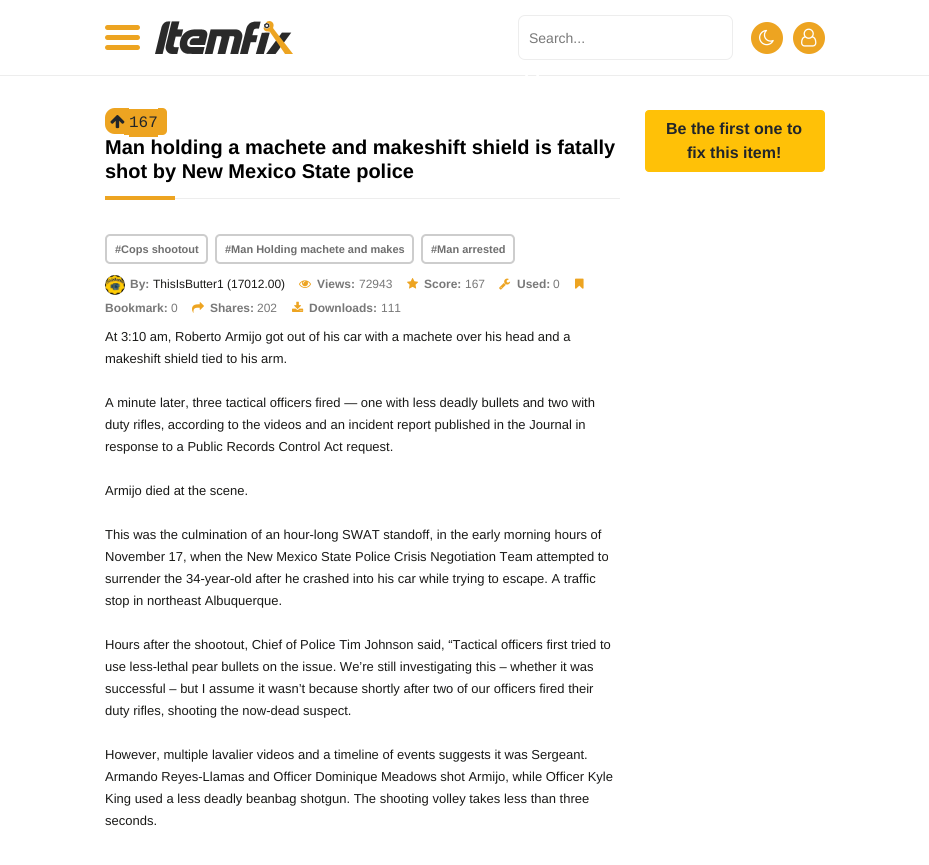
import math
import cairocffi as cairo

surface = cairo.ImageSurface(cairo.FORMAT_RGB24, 929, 865)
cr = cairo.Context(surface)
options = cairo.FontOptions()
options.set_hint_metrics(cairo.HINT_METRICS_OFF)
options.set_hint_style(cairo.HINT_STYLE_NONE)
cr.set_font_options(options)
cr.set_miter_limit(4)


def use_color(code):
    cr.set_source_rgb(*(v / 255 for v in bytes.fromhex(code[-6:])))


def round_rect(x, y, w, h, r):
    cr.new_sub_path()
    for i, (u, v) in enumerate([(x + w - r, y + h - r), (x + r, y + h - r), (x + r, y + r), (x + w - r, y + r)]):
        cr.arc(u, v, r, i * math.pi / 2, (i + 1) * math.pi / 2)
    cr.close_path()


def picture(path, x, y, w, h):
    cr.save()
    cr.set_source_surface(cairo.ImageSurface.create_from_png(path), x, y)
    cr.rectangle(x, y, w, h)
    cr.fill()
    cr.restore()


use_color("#ffffff")
cr.paint()
use_color("#ededed")
cr.rectangle(0, 75, 929, 1)
cr.fill()
use_color("#eda421")
round_rect(105, 25, 35, 5, 2.5)
cr.fill()
round_rect(105, 35, 35, 5, 2.5)
cr.fill()
round_rect(105, 45, 35, 5, 2.5)
cr.fill()
picture("img1.png", 155, 21, 138, 33)
round_rect(518.5, 15.5, 214, 44, 6.5)
use_color("#ededed")
cr.set_line_width(1)
cr.stroke()
cr.select_font_face("Liberation Sans")
cr.set_font_size(14)
use_color("#787878")
cr.move_to(529, 43)
cr.show_text("Search...")
picture("img2.png", 525, 75, 14, 1)
use_color("#eda421")
cr.arc(767, 38, 16, 0, 2 * math.pi)
cr.fill()
picture("img3.png", 759, 29, 15, 17)
cr.arc(809, 38, 16, 0, 2 * math.pi)
cr.fill()
picture("img4.png", 801, 28, 16, 19)
cr.new_path()
cr.move_to(114.5, 108)
cr.line_to(124, 108)
cr.line_to(124, 134)
cr.line_to(114.5, 134)
cr.curve_to(109.5, 134, 105, 129.5, 105, 124.5)
cr.line_to(105, 117.5)
cr.curve_to(105, 112.5, 109.5, 108, 114.5, 108)
cr.close_path()
cr.fill()
cr.rectangle(124, 108, 5, 27)
cr.fill()
cr.rectangle(129, 109, 29, 28)
cr.fill()
cr.new_path()
cr.move_to(158, 108)
cr.line_to(162.5, 108)
cr.curve_to(165, 108, 167, 110, 167, 112.5)
cr.line_to(167, 130.5)
cr.curve_to(167, 133, 165, 135, 162.5, 135)
cr.line_to(158, 135)
cr.close_path()
cr.fill()
picture("img5.png", 110, 115, 15, 14)
cr.select_font_face("Liberation Mono")
cr.set_font_size(16)
use_color("#212529")
cr.move_to(129, 127)
cr.show_text("167")
use_color("#ededed")
cr.rectangle(175, 198, 445, 1)
cr.fill()
cr.select_font_face("Liberation Sans", cairo.FONT_SLANT_NORMAL, cairo.FONT_WEIGHT_BOLD)
cr.set_font_size(20)
use_color("#000000")
cr.move_to(105, 154)
cr.show_text("Man holding a machete and makeshift shield is fatally")
cr.move_to(105, 178)
cr.show_text("shot by New Mexico State police")
use_color("#eda421")
cr.rectangle(105, 196, 70, 4)
cr.fill()
round_rect(106, 235, 101, 28, 4)
use_color("#cdcdcd")
cr.set_line_width(2)
cr.stroke()
cr.set_font_size(11)
use_color("#6f6f6f")
cr.move_to(115, 253)
cr.show_text("#Cops shootout")
round_rect(216, 235, 197, 28, 4)
use_color("#cdcdcd")
cr.stroke()
use_color("#6f6f6f")
cr.move_to(225, 253)
cr.show_text("#Man Holding machete and makes")
round_rect(422, 235, 92, 28, 4)
use_color("#cdcdcd")
cr.stroke()
use_color("#6f6f6f")
cr.move_to(431, 253)
cr.show_text("#Man arrested")
picture("img6.png", 105, 275, 20, 20)
cr.set_font_size(12)
use_color("#787878")
cr.move_to(130, 288)
cr.show_text("By:")
cr.select_font_face("Liberation Sans")
use_color("#191917")
cr.move_to(153, 288)
cr.show_text("ThisIsButter1 (17012.00)")
picture("img7.png", 299, 280, 12, 8)
cr.select_font_face("Liberation Sans", cairo.FONT_SLANT_NORMAL, cairo.FONT_WEIGHT_BOLD)
use_color("#787878")
cr.move_to(317, 288)
cr.show_text("Views:")
cr.select_font_face("Liberation Sans")
cr.move_to(359, 288)
cr.show_text("72943")
picture("img8.png", 407, 278, 12, 11)
cr.select_font_face("Liberation Sans", cairo.FONT_SLANT_NORMAL, cairo.FONT_WEIGHT_BOLD)
cr.move_to(424, 288)
cr.show_text("Score:")
cr.select_font_face("Liberation Sans")
cr.move_to(465, 288)
cr.show_text("167")
picture("img9.png", 499, 278, 12, 12)
cr.select_font_face("Liberation Sans", cairo.FONT_SLANT_NORMAL, cairo.FONT_WEIGHT_BOLD)
cr.move_to(517, 288)
cr.show_text("Used:")
cr.select_font_face("Liberation Sans")
cr.move_to(553, 288)
cr.show_text("0")
picture("img10.png", 575, 278, 9, 11)
cr.select_font_face("Liberation Sans", cairo.FONT_SLANT_NORMAL, cairo.FONT_WEIGHT_BOLD)
cr.move_to(105, 312)
cr.show_text("Bookmark:")
cr.select_font_face("Liberation Sans")
cr.move_to(171, 312)
cr.show_text("0")
picture("img11.png", 192, 302, 12, 11)
cr.select_font_face("Liberation Sans", cairo.FONT_SLANT_NORMAL, cairo.FONT_WEIGHT_BOLD)
cr.move_to(210, 312)
cr.show_text("Shares:")
cr.select_font_face("Liberation Sans")
cr.move_to(257, 312)
cr.show_text("202")
picture("img12.png", 292, 301, 12, 11)
cr.select_font_face("Liberation Sans", cairo.FONT_SLANT_NORMAL, cairo.FONT_WEIGHT_BOLD)
cr.move_to(309, 312)
cr.show_text("Downloads:")
cr.select_font_face("Liberation Sans")
cr.move_to(381, 312)
cr.show_text("111")
cr.set_font_size(13)
use_color("#191917")
cr.move_to(105, 341)
cr.show_text("At 3:10 am, Roberto Armijo got out of his car with a machete over his head and a")
cr.move_to(105, 363)
cr.show_text("makeshift shield tied to his arm.")
cr.move_to(105, 407)
cr.show_text("A minute later, three tactical officers fired — one with less deadly bullets and two with")
cr.move_to(105, 429)
cr.show_text("duty rifles, according to the videos and an incident report published in the Journal in")
cr.move_to(105, 451)
cr.show_text("response to a Public Records Control Act request.")
cr.move_to(105, 495)
cr.show_text("Armijo died at the scene.")
cr.move_to(105, 539)
cr.show_text("This was the culmination of an hour-long SWAT standoff, in the early morning hours of")
cr.move_to(105, 561)
cr.show_text("November 17, when the New Mexico State Police Crisis Negotiation Team attempted to")
cr.move_to(105, 583)
cr.show_text("surrender the 34-year-old after he crashed into his car while trying to escape. A traffic")
cr.move_to(105, 605)
cr.show_text("stop in northeast Albuquerque.")
cr.move_to(105, 649)
cr.show_text("Hours after the shootout, Chief of Police Tim Johnson said, “Tactical officers first tried to")
cr.move_to(105, 671)
cr.show_text("use less-lethal pear bullets on the issue. We’re still investigating this – whether it was")
cr.move_to(105, 693)
cr.show_text("successful – but I assume it wasn’t because shortly after two of our officers fired their")
cr.move_to(105, 715)
cr.show_text("duty rifles, shooting the now-dead suspect.")
cr.move_to(105, 759)
cr.show_text("However, multiple lavalier videos and a timeline of events suggests it was Sergeant.")
cr.move_to(105, 781)
cr.show_text("Armando Reyes-Llamas and Officer Dominique Meadows shot Armijo, while Officer Kyle")
cr.move_to(105, 803)
cr.show_text("King used a less deadly beanbag shotgun. The shooting volley takes less than three")
cr.move_to(105, 825)
cr.show_text("seconds.")
use_color("#ffc107")
round_rect(645.5, 110.5, 179, 61, 3.5)
cr.fill_preserve()
cr.set_line_width(1)
cr.stroke()
cr.select_font_face("Liberation Sans", cairo.FONT_SLANT_NORMAL, cairo.FONT_WEIGHT_BOLD)
cr.set_font_size(16)
use_color("#212529")
cr.move_to(666, 134)
cr.show_text("Be the first one to")
cr.move_to(687, 158)
cr.show_text("fix this item!")
surface.write_to_png("result.png")
